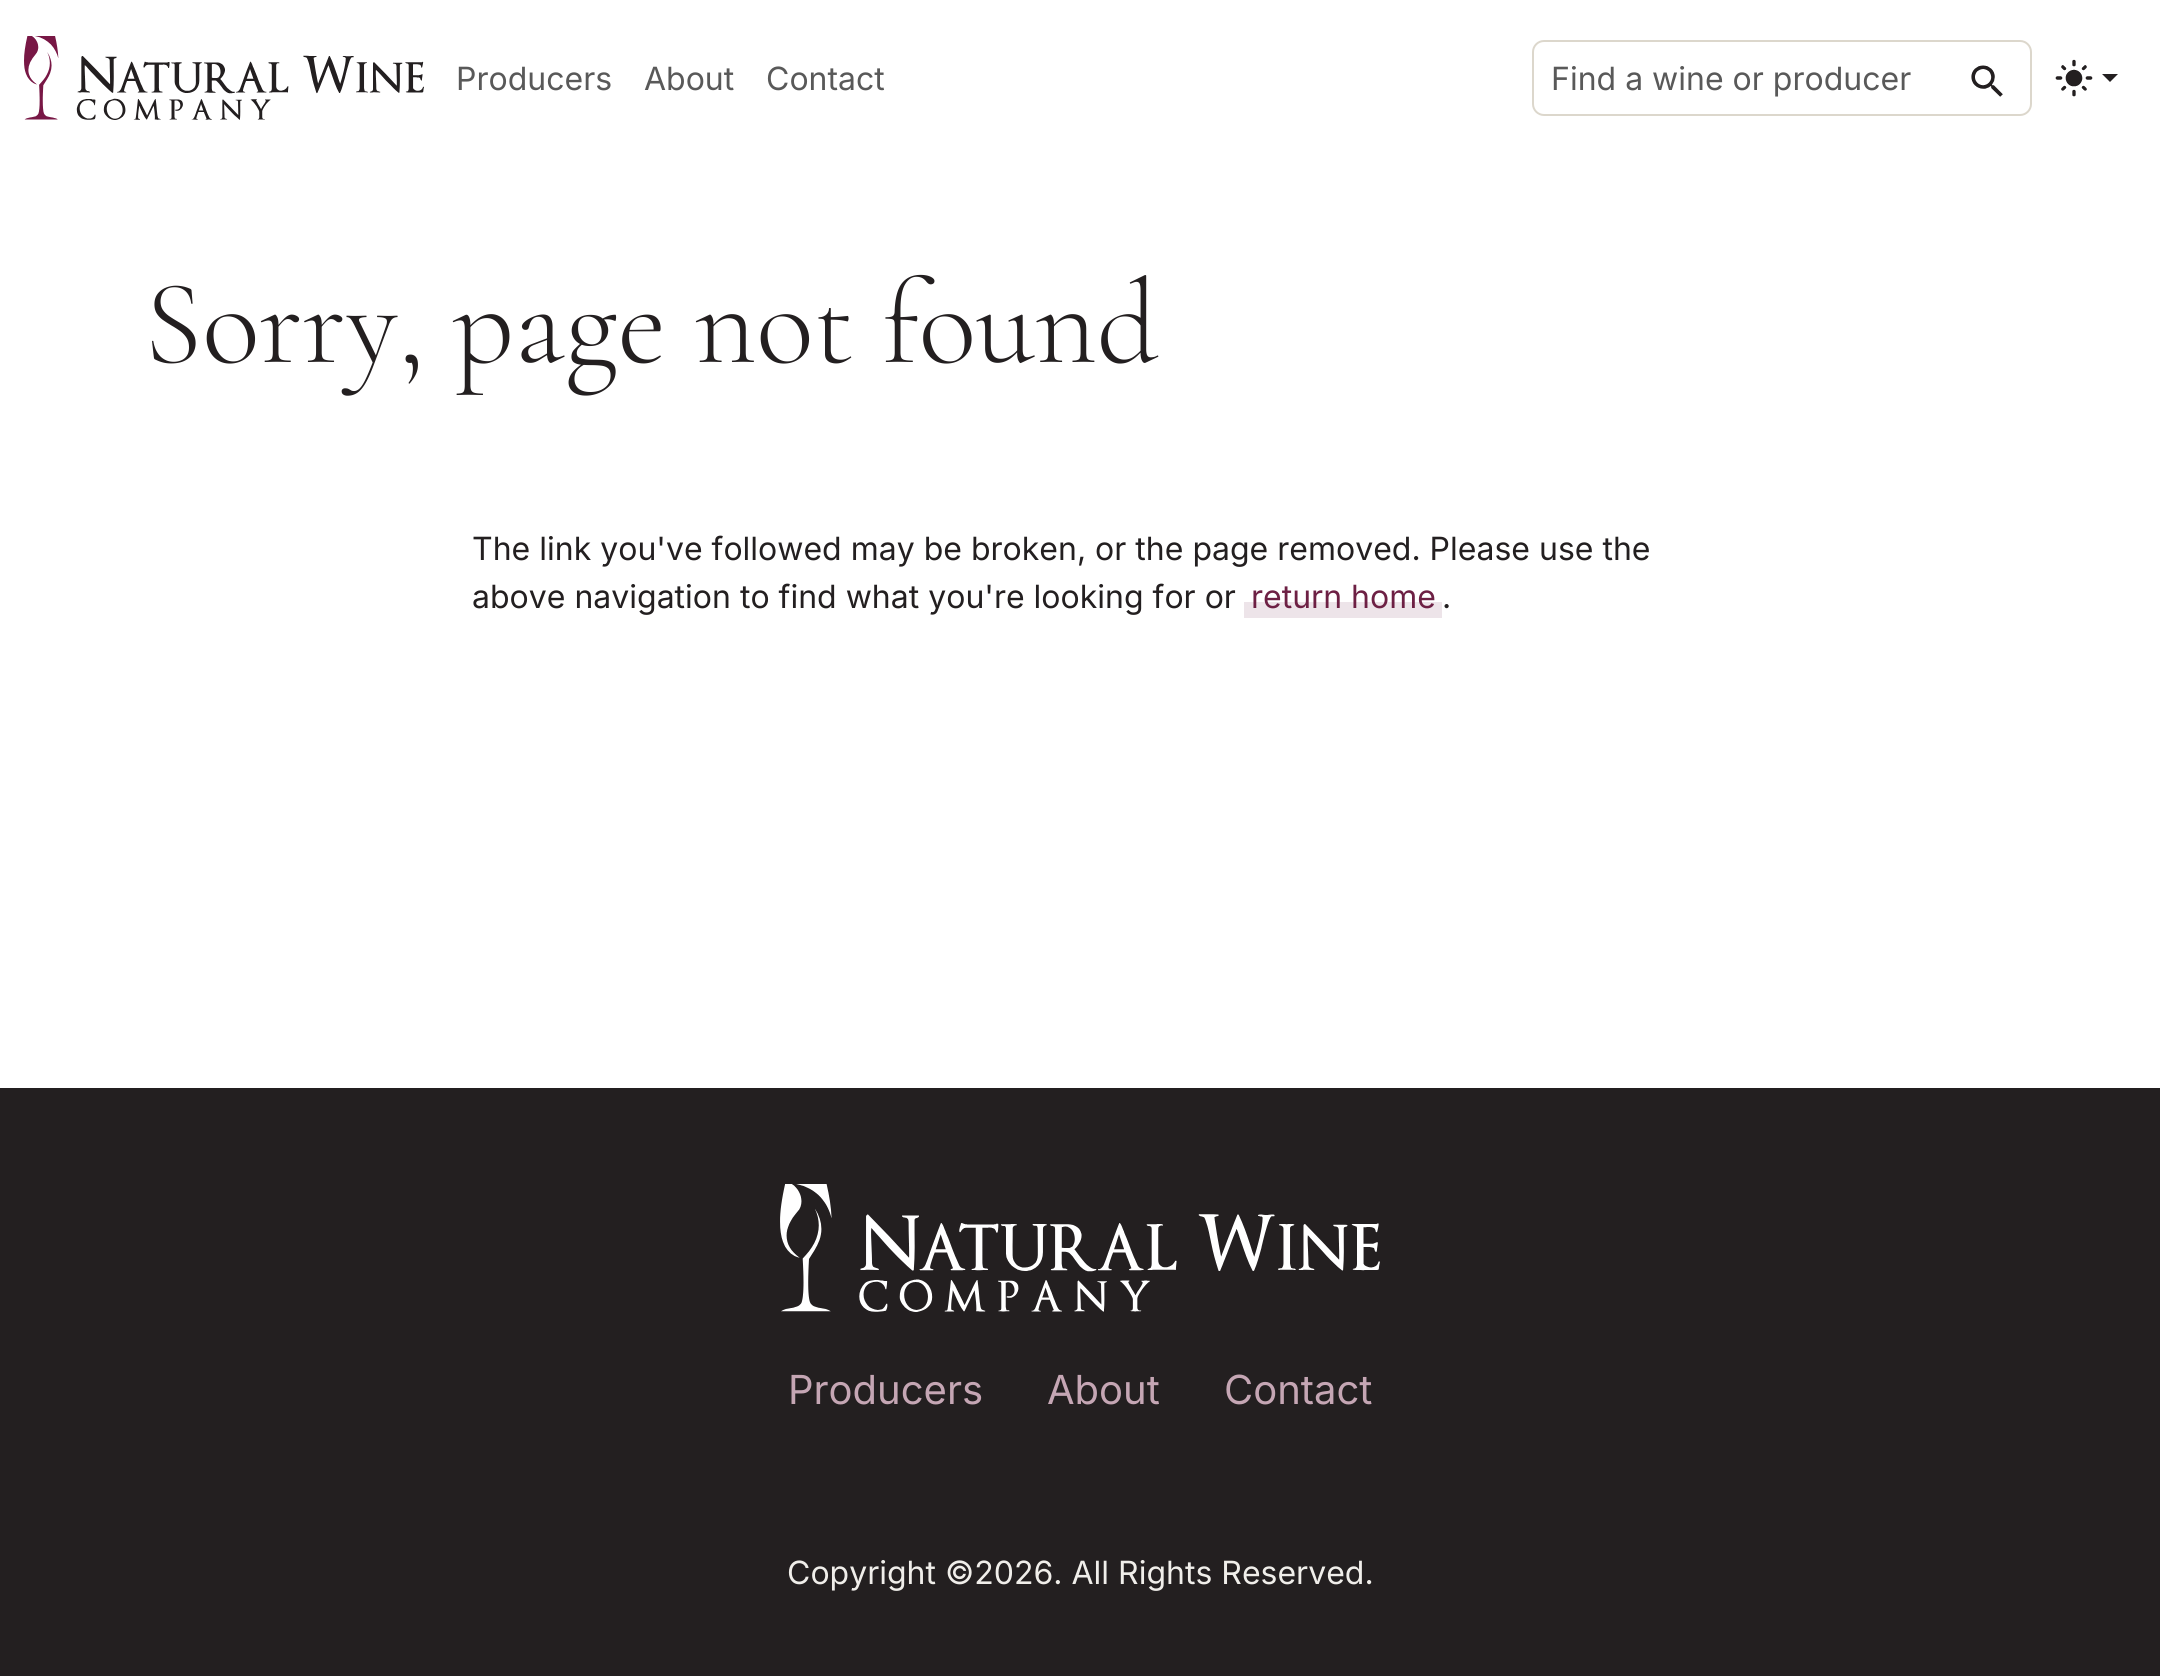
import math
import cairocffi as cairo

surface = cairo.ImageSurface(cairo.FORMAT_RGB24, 2160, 1676)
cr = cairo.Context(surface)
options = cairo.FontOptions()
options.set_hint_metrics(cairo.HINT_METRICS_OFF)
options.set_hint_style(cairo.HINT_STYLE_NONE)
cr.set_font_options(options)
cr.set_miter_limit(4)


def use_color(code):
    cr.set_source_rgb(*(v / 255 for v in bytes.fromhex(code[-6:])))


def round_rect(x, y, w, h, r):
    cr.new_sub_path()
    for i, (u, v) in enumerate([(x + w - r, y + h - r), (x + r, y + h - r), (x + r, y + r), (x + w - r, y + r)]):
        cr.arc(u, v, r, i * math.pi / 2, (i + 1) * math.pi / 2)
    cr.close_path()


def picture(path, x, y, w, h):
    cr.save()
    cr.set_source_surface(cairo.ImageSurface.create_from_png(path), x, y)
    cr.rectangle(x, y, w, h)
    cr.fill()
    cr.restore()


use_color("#ffffff")
cr.paint()
picture("img1.png", 24, 36, 400, 84)
cr.select_font_face("Inter")
cr.set_font_size(32)
use_color("#595959")
cr.move_to(456, 90)
cr.show_text("Producers")
cr.move_to(644, 90)
cr.show_text("About")
cr.move_to(766, 90)
cr.show_text("Contact")
round_rect(1533, 41, 498, 74, 11)
use_color("#dcd7cc")
cr.stroke()
use_color("#595959")
cr.move_to(1551, 90)
cr.show_text("Find a wine or producer")
picture("img2.png", 1971, 65, 32, 32)
picture("img3.png", 2055, 59, 38, 38)
use_color("#231f20")
cr.new_path()
cr.move_to(2102, 74)
cr.line_to(2118, 74)
cr.line_to(2110, 82)
cr.close_path()
cr.fill()
cr.select_font_face("Cormorant Garamond Light")
cr.set_font_size(120)
cr.move_to(144, 362)
cr.show_text("Sorry, page not found")
cr.select_font_face("Inter")
cr.set_font_size(32)
cr.move_to(472, 560)
cr.show_text("The link you've followed may be broken, or the page removed. Please use the")
cr.move_to(472, 608)
cr.show_text("above navigation to find what you're looking for or")
use_color("#ede4e9")
cr.rectangle(1244, 602, 198, 16)
cr.fill()
use_color("#6d2044")
cr.move_to(1251, 608)
cr.show_text("return home")
use_color("#231f20")
cr.move_to(1442, 608)
cr.show_text(".")
cr.rectangle(0, 1088, 2160, 588)
cr.fill()
picture("img4.png", 780, 1184, 600, 128)
cr.set_font_size(40)
use_color("#c5a6b4")
cr.move_to(788, 1404)
cr.show_text("Producers")
cr.move_to(1047, 1404)
cr.show_text("About")
cr.move_to(1224, 1404)
cr.show_text("Contact")
cr.set_font_size(32)
use_color("#f0eeea")
cr.move_to(787, 1584)
cr.show_text("Copyright ©2026. All Rights Reserved.")
surface.write_to_png("result.png")
